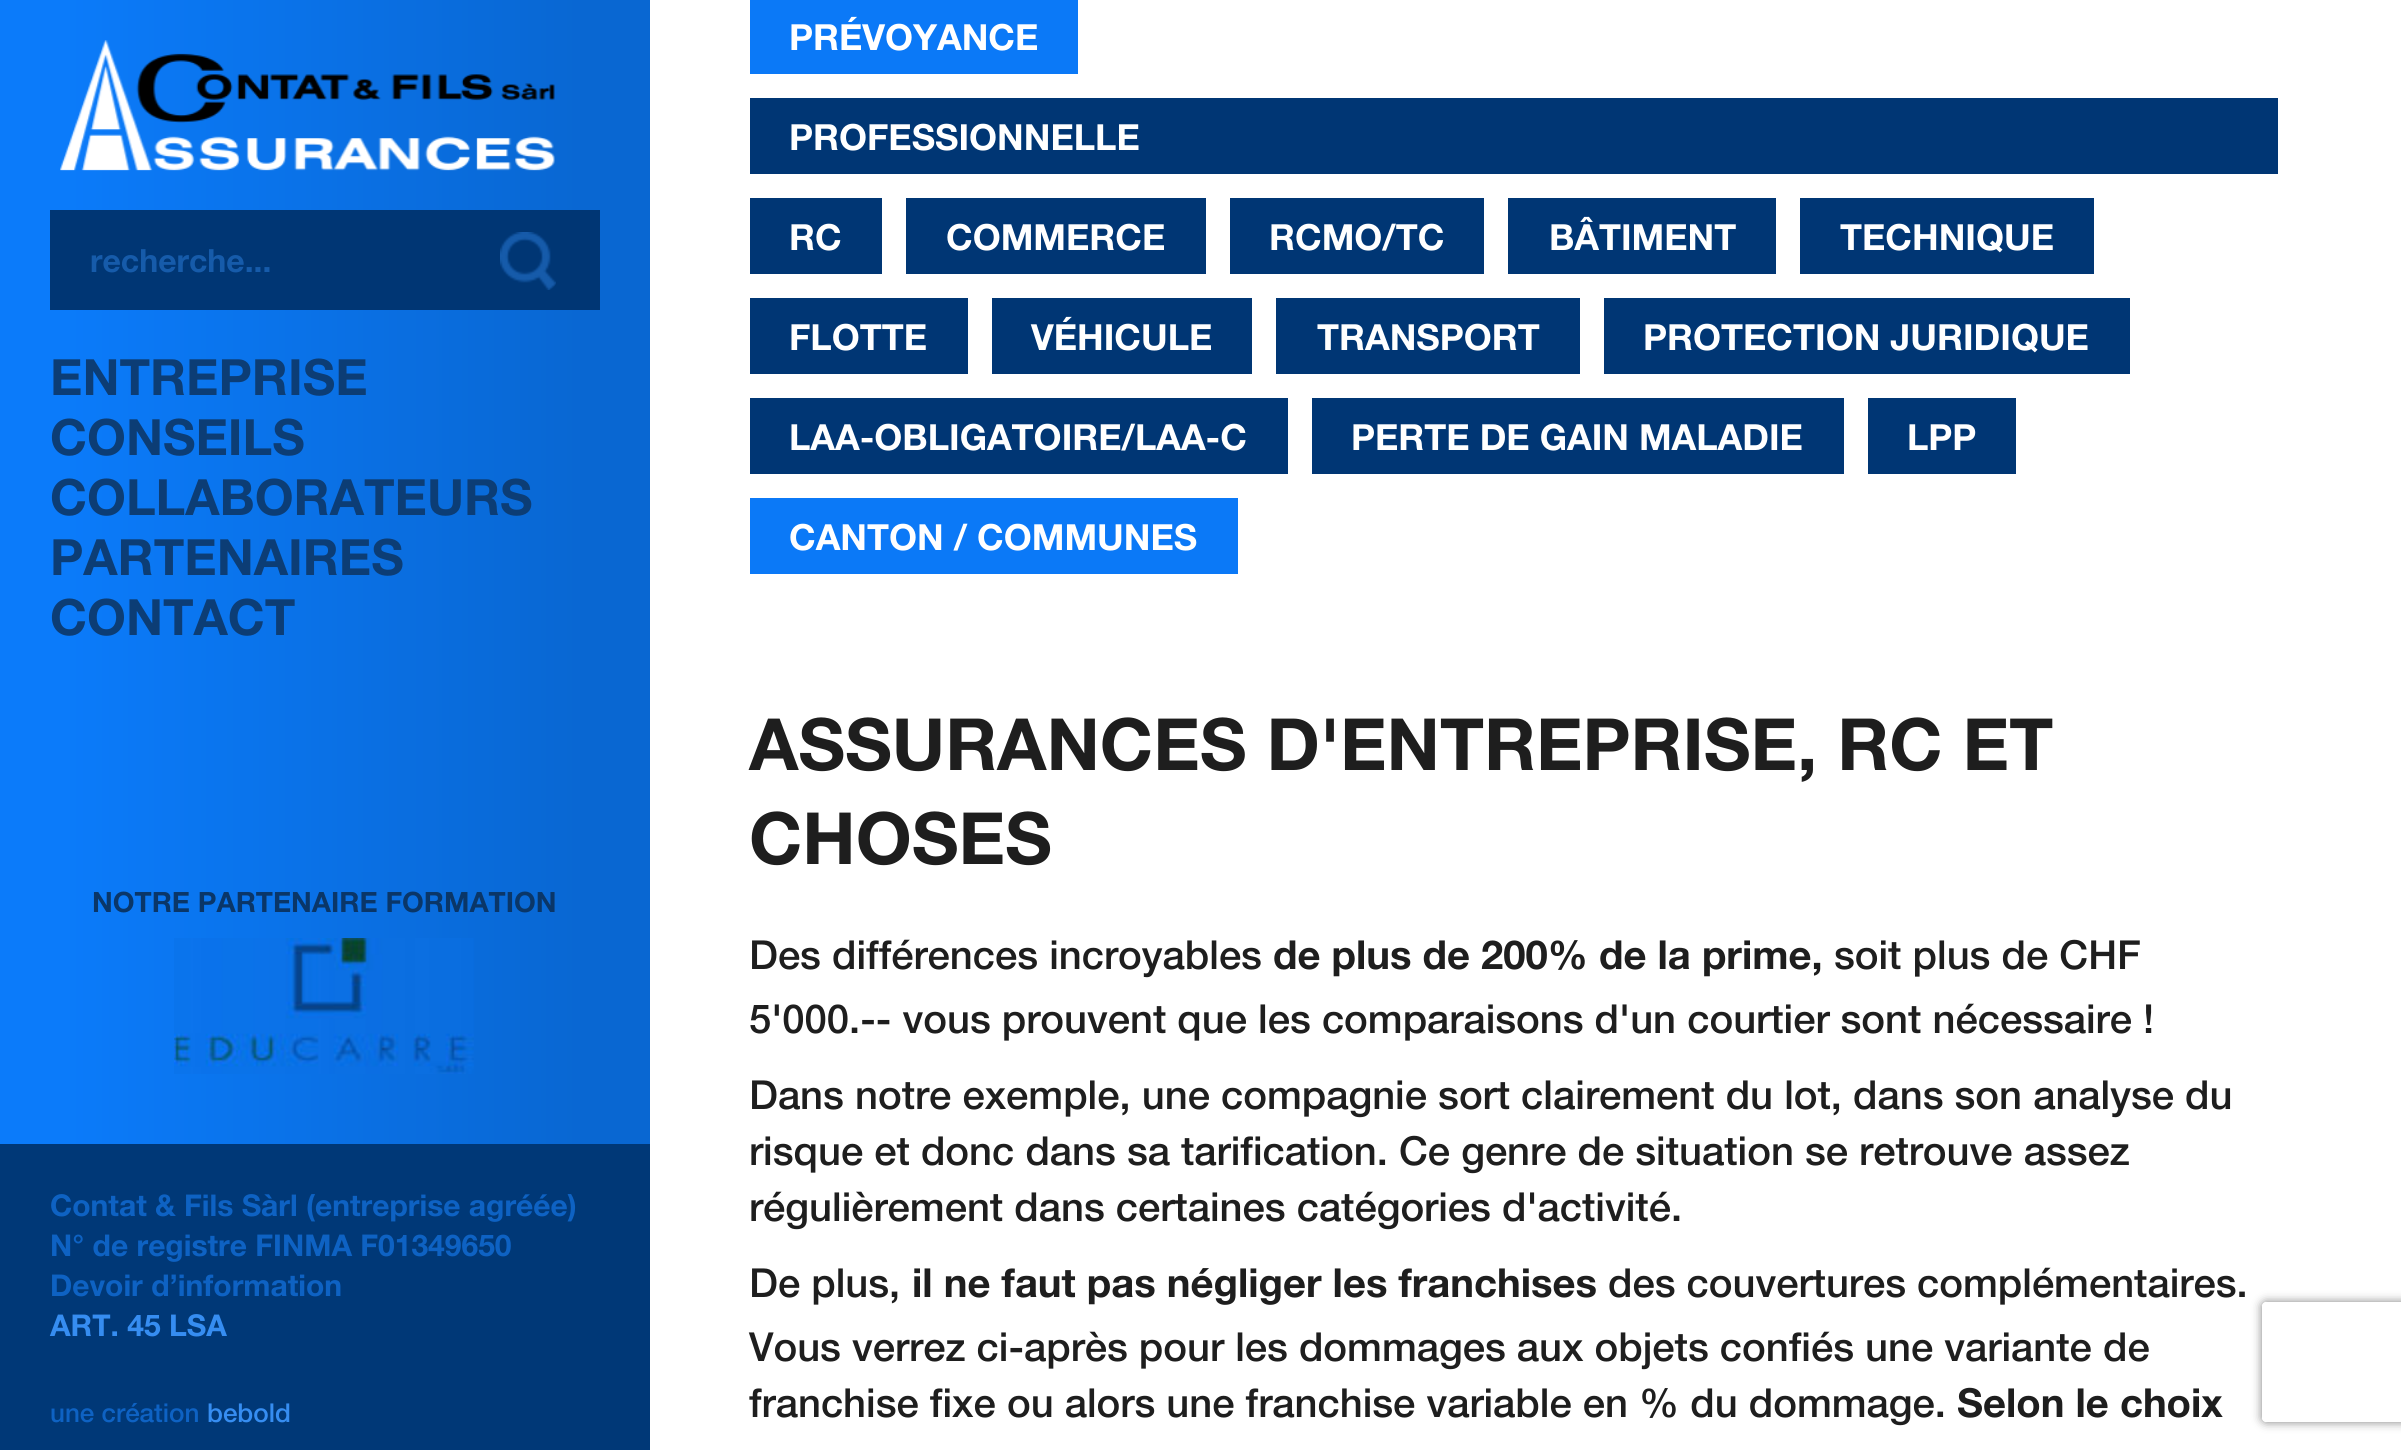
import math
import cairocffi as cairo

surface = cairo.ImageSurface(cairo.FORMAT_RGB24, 2401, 1450)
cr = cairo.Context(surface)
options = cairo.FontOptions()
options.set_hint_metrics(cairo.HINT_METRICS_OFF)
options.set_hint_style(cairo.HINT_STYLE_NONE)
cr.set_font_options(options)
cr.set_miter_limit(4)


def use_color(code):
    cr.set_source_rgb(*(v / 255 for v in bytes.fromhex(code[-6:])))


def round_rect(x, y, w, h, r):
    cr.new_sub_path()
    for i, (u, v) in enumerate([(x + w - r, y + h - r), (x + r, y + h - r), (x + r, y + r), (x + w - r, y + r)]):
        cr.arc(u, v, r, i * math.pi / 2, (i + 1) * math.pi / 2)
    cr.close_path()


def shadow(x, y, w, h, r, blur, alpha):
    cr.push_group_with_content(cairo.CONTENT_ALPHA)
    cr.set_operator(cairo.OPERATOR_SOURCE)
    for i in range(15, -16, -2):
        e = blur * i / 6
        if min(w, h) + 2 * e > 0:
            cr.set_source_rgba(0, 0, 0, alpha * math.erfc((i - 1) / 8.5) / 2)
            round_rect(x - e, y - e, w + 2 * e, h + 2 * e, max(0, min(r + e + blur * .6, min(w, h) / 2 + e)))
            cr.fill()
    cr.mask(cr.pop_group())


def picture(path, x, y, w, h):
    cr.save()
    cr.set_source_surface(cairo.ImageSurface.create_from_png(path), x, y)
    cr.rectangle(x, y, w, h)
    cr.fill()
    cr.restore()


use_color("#ffffff")
cr.paint()
gradient = cairo.LinearGradient(0, 725, 650, 725)
gradient.add_color_stop_rgba(0.1, 0.043, 0.482, 0.98, 1)
gradient.add_color_stop_rgba(0.9, 0.035, 0.404, 0.824, 1)
cr.set_source(gradient)
cr.rectangle(0, 0, 650, 1144)
cr.fill()
picture("img1.png", 60, 40, 495, 131)
use_color("#003674")
cr.rectangle(50, 210, 550, 100)
cr.fill()
cr.select_font_face("Helvetica Neue", cairo.FONT_SLANT_NORMAL, cairo.FONT_WEIGHT_BOLD)
cr.set_font_size(32)
use_color("#165baa")
cr.move_to(90, 272)
cr.show_text("recherche...")
picture("img2.png", 500, 232, 56, 58)
cr.set_font_size(50)
use_color("#0c3d75")
cr.move_to(50, 395)
cr.show_text("ENTREPRISE")
cr.move_to(50, 455)
cr.show_text("CONSEILS")
cr.move_to(50, 515)
cr.show_text("COLLABORATEURS")
cr.move_to(50, 575)
cr.show_text("PARTENAIRES")
cr.move_to(50, 635)
cr.show_text("CONTACT")
cr.set_font_size(28)
use_color("#0a3668")
cr.move_to(92, 912)
cr.show_text("NOTRE PARTENAIRE FORMATION")
picture("img3.png", 174, 938, 300, 136)
use_color("#003877")
cr.rectangle(0, 1144, 650, 306)
cr.fill()
cr.set_font_size(30)
use_color("#0e62c3")
cr.move_to(50, 1216)
cr.show_text("Contat & Fils Sàrl (entreprise agréée)")
cr.move_to(50, 1256)
cr.show_text("N° de registre FINMA F01349650")
cr.move_to(50, 1296)
cr.show_text("Devoir d’information")
use_color("#368df1")
cr.move_to(50, 1336)
cr.show_text("ART. 45 LSA")
cr.select_font_face("Helvetica Neue Medium")
cr.set_font_size(26)
use_color("#0e62c3")
cr.move_to(50, 1422)
cr.show_text("une création")
use_color("#368df1")
cr.move_to(207, 1422)
cr.show_text("bebold")
use_color("#0b79f7")
cr.rectangle(750, 0, 328, 74)
cr.fill()
cr.select_font_face("Helvetica Neue", cairo.FONT_SLANT_NORMAL, cairo.FONT_WEIGHT_BOLD)
cr.set_font_size(36)
use_color("#ffffff")
cr.move_to(789, 50)
cr.show_text("PRÉVOYANCE")
use_color("#003674")
cr.rectangle(750, 98, 1528, 76)
cr.fill()
use_color("#ffffff")
cr.move_to(789, 150)
cr.show_text("PROFESSIONNELLE")
use_color("#003674")
cr.rectangle(750, 198, 132, 76)
cr.fill()
use_color("#ffffff")
cr.move_to(789, 250)
cr.show_text("RC")
use_color("#003674")
cr.rectangle(906, 198, 300, 76)
cr.fill()
use_color("#ffffff")
cr.move_to(946, 250)
cr.show_text("COMMERCE")
use_color("#003674")
cr.rectangle(1230, 198, 254, 76)
cr.fill()
use_color("#ffffff")
cr.move_to(1269, 250)
cr.show_text("RCMO/TC")
use_color("#003674")
cr.rectangle(1508, 198, 268, 76)
cr.fill()
use_color("#ffffff")
cr.move_to(1549, 250)
cr.show_text("BÂTIMENT")
use_color("#003674")
cr.rectangle(1800, 198, 294, 76)
cr.fill()
use_color("#ffffff")
cr.move_to(1840, 250)
cr.show_text("TECHNIQUE")
use_color("#003674")
cr.rectangle(750, 298, 218, 76)
cr.fill()
use_color("#ffffff")
cr.move_to(789, 350)
cr.show_text("FLOTTE")
use_color("#003674")
cr.rectangle(992, 298, 260, 76)
cr.fill()
use_color("#ffffff")
cr.move_to(1031, 350)
cr.show_text("VÉHICULE")
use_color("#003674")
cr.rectangle(1276, 298, 304, 76)
cr.fill()
use_color("#ffffff")
cr.move_to(1317, 350)
cr.show_text("TRANSPORT")
use_color("#003674")
cr.rectangle(1604, 298, 526, 76)
cr.fill()
use_color("#ffffff")
cr.move_to(1643, 350)
cr.show_text("PROTECTION JURIDIQUE")
use_color("#003674")
cr.rectangle(750, 398, 538, 76)
cr.fill()
use_color("#ffffff")
cr.move_to(789, 450)
cr.show_text("LAA-OBLIGATOIRE/LAA-C")
use_color("#003674")
cr.rectangle(1312, 398, 532, 76)
cr.fill()
use_color("#ffffff")
cr.move_to(1351, 450)
cr.show_text("PERTE DE GAIN MALADIE")
use_color("#003674")
cr.rectangle(1868, 398, 148, 76)
cr.fill()
use_color("#ffffff")
cr.move_to(1907, 450)
cr.show_text("LPP")
use_color("#0b79f7")
cr.rectangle(750, 498, 488, 76)
cr.fill()
use_color("#ffffff")
cr.move_to(789, 550)
cr.show_text("CANTON / COMMUNES")
cr.set_font_size(72)
use_color("#1e1e1e")
cr.move_to(749, 770)
cr.show_text("ASSURANCES D'ENTREPRISE, RC ET")
cr.move_to(749, 864)
cr.show_text("CHOSES")
cr.select_font_face("Helvetica Neue Medium")
cr.set_font_size(40)
cr.move_to(749, 969)
cr.show_text("Des différences incroyables")
cr.select_font_face("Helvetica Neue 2", cairo.FONT_SLANT_NORMAL, cairo.FONT_WEIGHT_BOLD)
cr.move_to(1273, 969)
cr.show_text("de plus de 200% de la prime,")
cr.select_font_face("Helvetica Neue Medium")
cr.move_to(1834, 969)
cr.show_text("soit plus de CHF")
cr.move_to(749, 1033)
cr.show_text("5'000.-- vous prouvent que les comparaisons d'un courtier sont nécessaire !")
cr.move_to(749, 1109)
cr.show_text("Dans notre exemple, une compagnie sort clairement du lot, dans son analyse du")
cr.move_to(749, 1165)
cr.show_text("risque et donc dans sa tarification. Ce genre de situation se retrouve assez")
cr.move_to(749, 1221)
cr.show_text("régulièrement dans certaines catégories d'activité.")
cr.move_to(749, 1297)
cr.show_text("De plus,")
cr.select_font_face("Helvetica Neue 2", cairo.FONT_SLANT_NORMAL, cairo.FONT_WEIGHT_BOLD)
cr.move_to(912, 1297)
cr.show_text("il ne faut pas négliger les franchises")
cr.select_font_face("Helvetica Neue Medium")
cr.move_to(1608, 1297)
cr.show_text("des couvertures complémentaires.")
cr.move_to(749, 1361)
cr.show_text("Vous verrez ci-après pour les dommages aux objets confiés une variante de")
cr.move_to(749, 1417)
cr.show_text("franchise fixe ou alors une franchise variable en % du dommage.")
cr.select_font_face("Helvetica Neue 2", cairo.FONT_SLANT_NORMAL, cairo.FONT_WEIGHT_BOLD)
cr.move_to(1957, 1417)
cr.show_text("Selon le choix")
cr.save()
cr.set_fill_rule(cairo.FILL_RULE_EVEN_ODD)
cr.new_path()
cr.move_to(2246, 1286)
cr.line_to(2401, 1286)
cr.line_to(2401, 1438)
cr.line_to(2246, 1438)
cr.close_path()
cr.move_to(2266, 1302)
cr.line_to(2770, 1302)
cr.curve_to(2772, 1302, 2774, 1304, 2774, 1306)
cr.line_to(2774, 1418)
cr.curve_to(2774, 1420, 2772, 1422, 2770, 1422)
cr.line_to(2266, 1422)
cr.curve_to(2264, 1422, 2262, 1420, 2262, 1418)
cr.line_to(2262, 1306)
cr.curve_to(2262, 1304, 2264, 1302, 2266, 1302)
cr.close_path()
cr.clip()
use_color("#808080")
shadow(2262, 1302, 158, 120, 4, 5, 1)
cr.restore()
surface.write_to_png("result.png")
